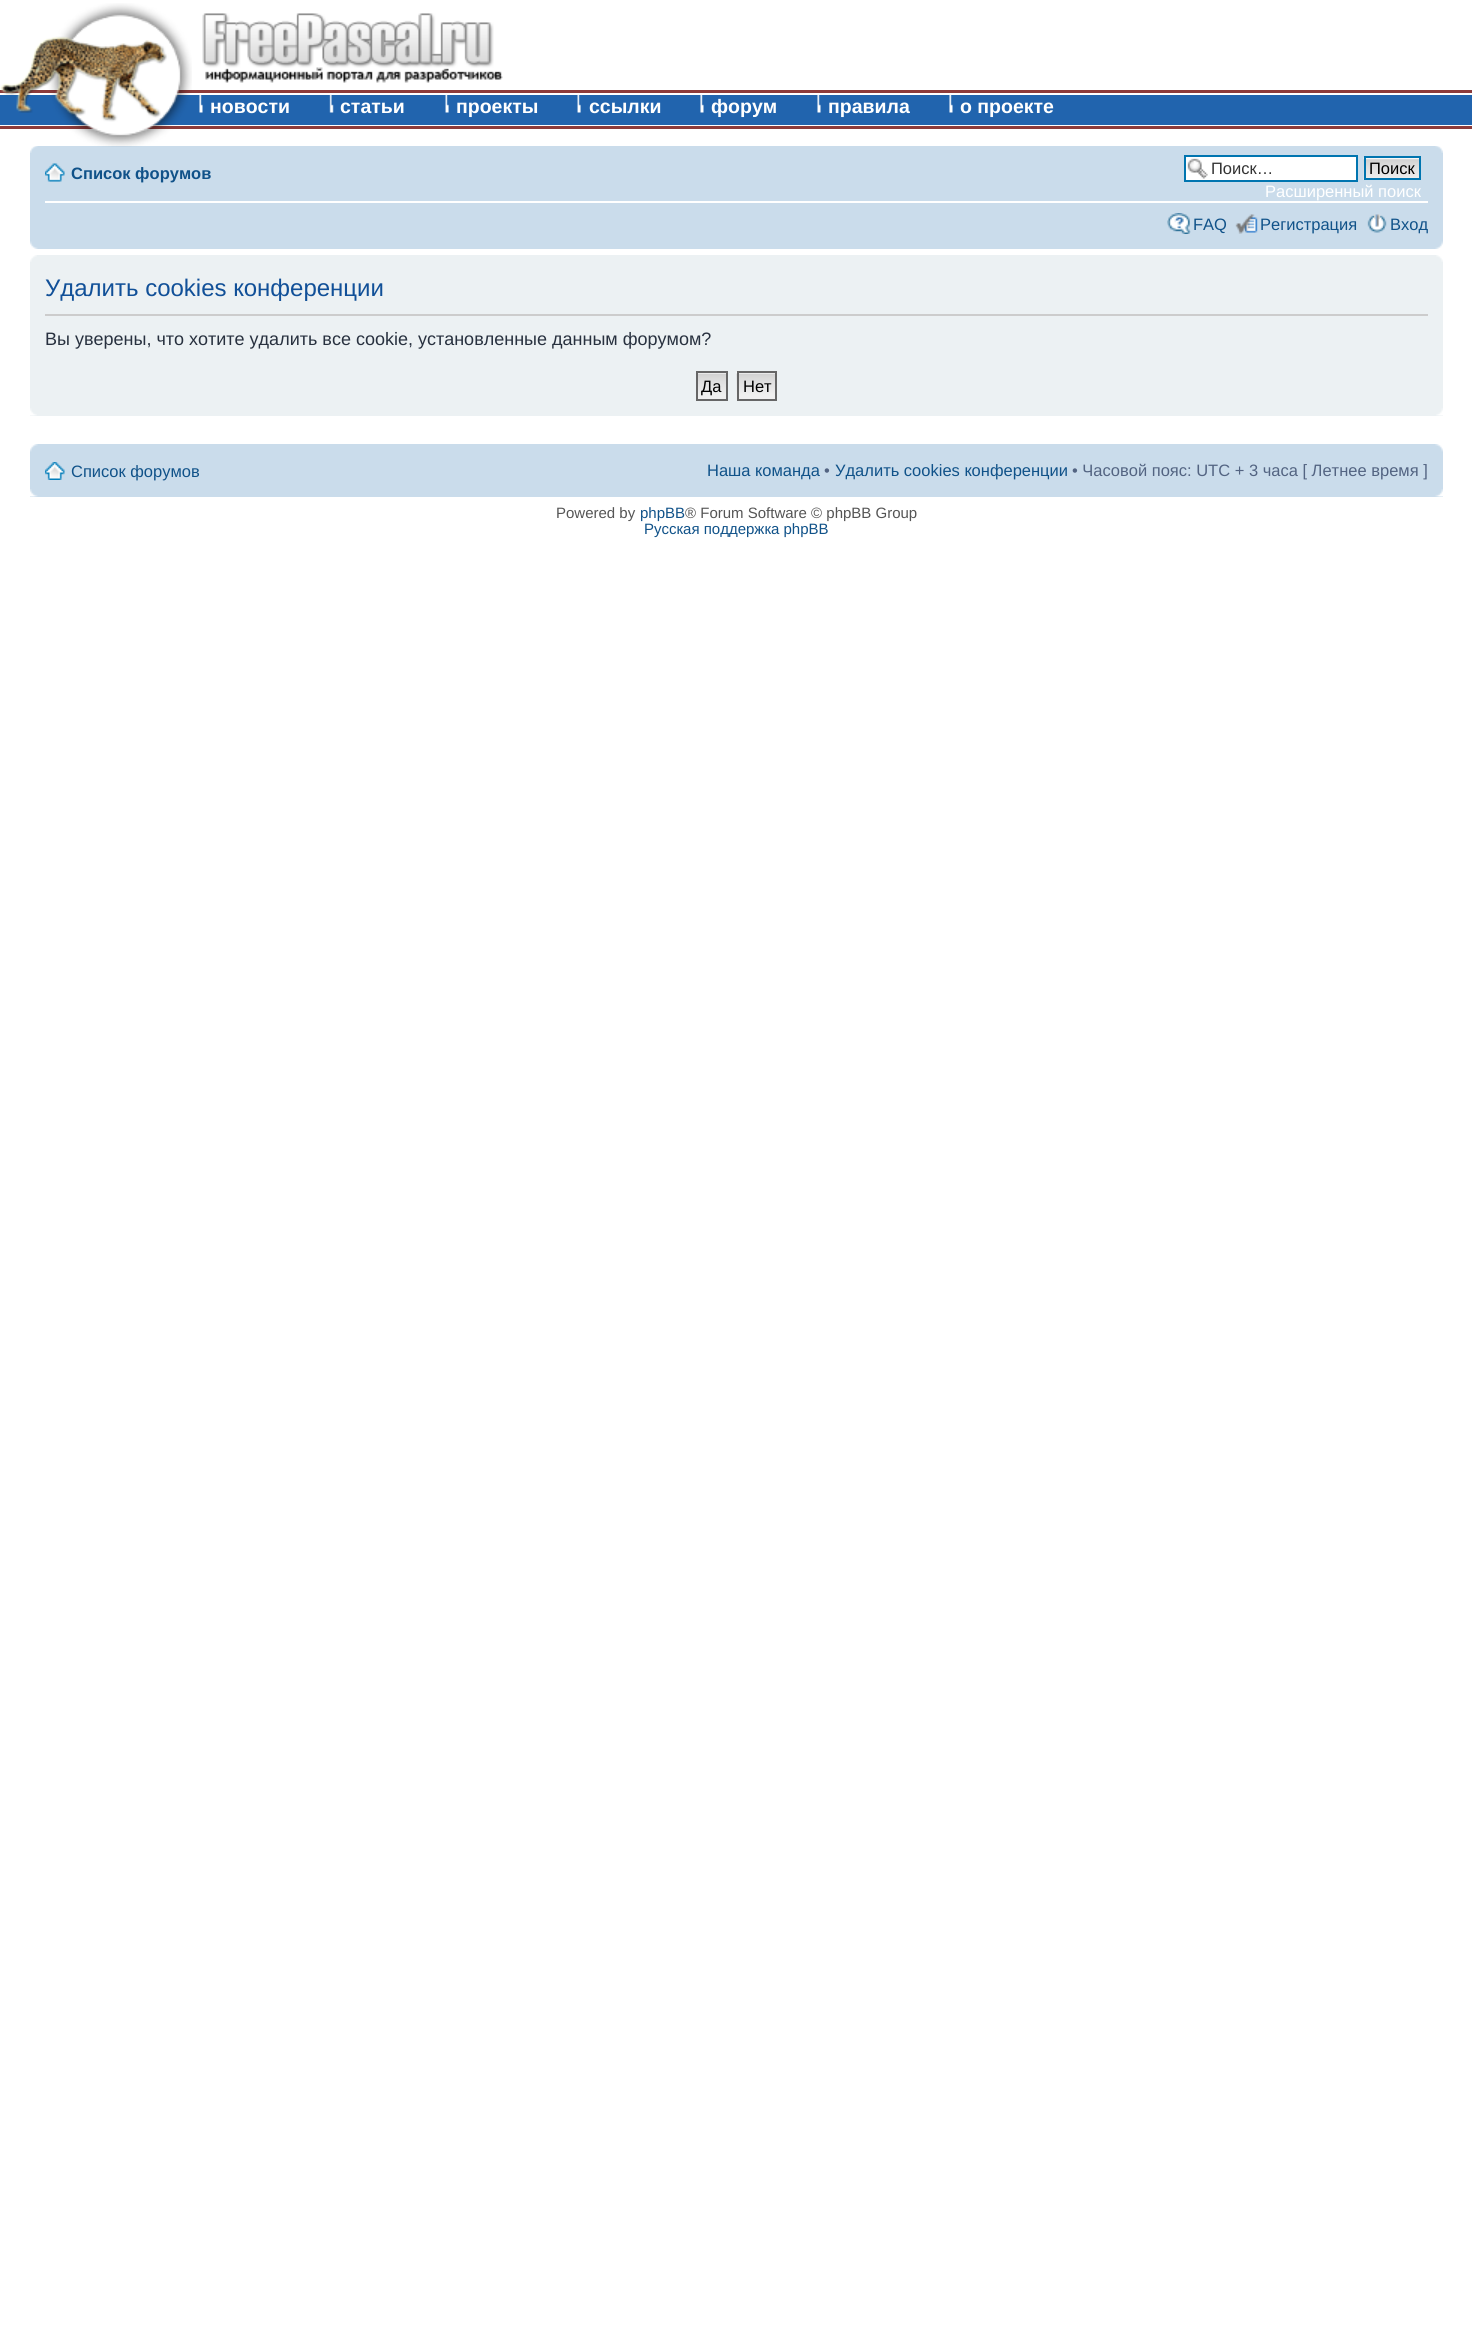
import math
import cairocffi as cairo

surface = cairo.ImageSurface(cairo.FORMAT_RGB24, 1472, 2327)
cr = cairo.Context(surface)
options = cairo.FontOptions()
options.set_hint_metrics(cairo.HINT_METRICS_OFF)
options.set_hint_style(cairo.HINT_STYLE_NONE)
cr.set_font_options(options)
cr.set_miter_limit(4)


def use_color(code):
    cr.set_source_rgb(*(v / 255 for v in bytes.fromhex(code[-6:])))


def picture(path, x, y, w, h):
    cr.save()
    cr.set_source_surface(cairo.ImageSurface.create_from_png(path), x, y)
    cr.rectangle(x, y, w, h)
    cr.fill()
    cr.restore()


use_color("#ffffff")
cr.paint()
use_color("#8c3b3b")
cr.rectangle(0, 90, 1472, 3)
cr.fill()
use_color("#2164ae")
cr.rectangle(0, 95, 1472, 30)
cr.fill()
use_color("#8c3b3b")
cr.rectangle(0, 126, 1472, 3)
cr.fill()
use_color("#cadceb")
cr.rectangle(30, 146, 1413, 103)
cr.fill()
picture("img6.png", 30, 146, 8, 7)
picture("img1.png", 0, 3, 192, 144)
picture("img2.png", 202, 13, 301, 70)
picture("img3.png", 199, 95, 4, 18)
cr.select_font_face("Liberation Sans", cairo.FONT_SLANT_NORMAL, cairo.FONT_WEIGHT_BOLD)
cr.set_font_size(19.5)
use_color("#ffffff")
cr.move_to(210, 113)
cr.show_text("новости")
picture("img4.png", 329, 95, 5, 18)
cr.move_to(340, 113)
cr.show_text("статьи")
picture("img5.png", 445, 95, 4, 18)
cr.move_to(456, 113)
cr.show_text("проекты")
picture("img5.png", 577, 95, 4, 18)
cr.move_to(589, 113)
cr.show_text("ссылки")
picture("img3.png", 700, 95, 4, 18)
cr.move_to(711, 113)
cr.show_text("форум")
picture("img3.png", 817, 95, 4, 18)
cr.move_to(828, 113)
cr.show_text("правила")
picture("img3.png", 949, 95, 4, 18)
cr.move_to(960, 113)
cr.show_text("о проекте")
picture("img7.png", 1435, 146, 8, 7)
cr.rectangle(45, 201, 1383, 2)
cr.fill()
picture("img8.png", 45, 163, 20, 19)
cr.set_font_size(16.5)
use_color("#105289")
cr.move_to(71, 179)
cr.show_text("Список форумов")
use_color("#ffffff")
cr.rectangle(1186, 157, 170, 23)
cr.fill()
picture("img9.png", 1187, 158, 21, 21)
cr.rectangle(1185, 156, 172, 25)
use_color("#0075b0")
cr.stroke()
cr.select_font_face("Liberation Sans")
use_color("#333333")
cr.move_to(1211, 174)
cr.show_text("Поиск…")
picture("img10.png", 1363, 157, 56, 23)
cr.rectangle(1365, 157, 55, 22)
use_color("#0075b0")
cr.stroke()
use_color("#000000")
cr.move_to(1369, 174)
cr.show_text("Поиск")
use_color("#ffffff")
cr.move_to(1265, 197)
cr.show_text("Расширенный поиск")
picture("img11.png", 1167, 213, 24, 21)
use_color("#105289")
cr.move_to(1193, 230)
cr.show_text("FAQ")
picture("img12.png", 1235, 214, 23, 20)
cr.move_to(1260, 230)
cr.show_text("Регистрация")
picture("img13.png", 1367, 214, 20, 19)
cr.move_to(1390, 230)
cr.show_text("Вход")
picture("img14.png", 30, 241, 8, 8)
picture("img15.png", 1435, 241, 8, 8)
use_color("#ecf1f3")
cr.rectangle(30, 255, 1413, 161)
cr.fill()
picture("img16.png", 30, 255, 7, 7)
picture("img17.png", 1436, 255, 7, 7)
use_color("#cccccc")
cr.rectangle(45, 314, 1383, 2)
cr.fill()
cr.set_font_size(24)
use_color("#115098")
cr.move_to(45, 296)
cr.show_text("Удалить cookies конференции")
cr.set_font_size(18)
use_color("#28313f")
cr.move_to(45, 345)
cr.show_text("Вы уверены, что хотите удалить все cookie, установленные данным форумом?")
picture("img18.png", 698, 373, 28, 26)
cr.rectangle(697, 372, 30, 28)
use_color("#666666")
cr.stroke()
cr.set_font_size(16.5)
use_color("#000000")
cr.move_to(701, 392)
cr.show_text("Да")
picture("img19.png", 736, 372, 39, 29)
cr.rectangle(738, 372, 38, 28)
use_color("#666666")
cr.stroke()
use_color("#000000")
cr.move_to(743, 392)
cr.show_text("Нет")
picture("img20.png", 30, 408, 7, 8)
picture("img21.png", 1436, 408, 7, 8)
use_color("#cadceb")
cr.rectangle(30, 444, 1413, 53)
cr.fill()
picture("img22.png", 30, 444, 8, 8)
picture("img23.png", 1435, 444, 8, 8)
picture("img24.png", 45, 462, 20, 18)
use_color("#105289")
cr.move_to(71, 477)
cr.show_text("Список форумов")
cr.move_to(707, 476)
cr.show_text("Наша команда")
use_color("#536482")
cr.move_to(824, 476)
cr.show_text("•")
use_color("#105289")
cr.move_to(835, 476)
cr.show_text("Удалить cookies конференции")
use_color("#536482")
cr.move_to(1072, 476)
cr.show_text("• Часовой пояс: UTC + 3 часа [ Летнее время ]")
picture("img25.png", 30, 489, 8, 8)
picture("img26.png", 1435, 489, 8, 8)
cr.set_font_size(15)
use_color("#555555")
cr.move_to(556, 518)
cr.show_text("Powered by")
use_color("#105289")
cr.move_to(640, 518)
cr.show_text("phpBB")
use_color("#555555")
cr.move_to(685, 518)
cr.show_text("® Forum Software © phpBB Group")
use_color("#105289")
cr.move_to(644, 534)
cr.show_text("Русская поддержка phpBB")
surface.write_to_png("result.png")
